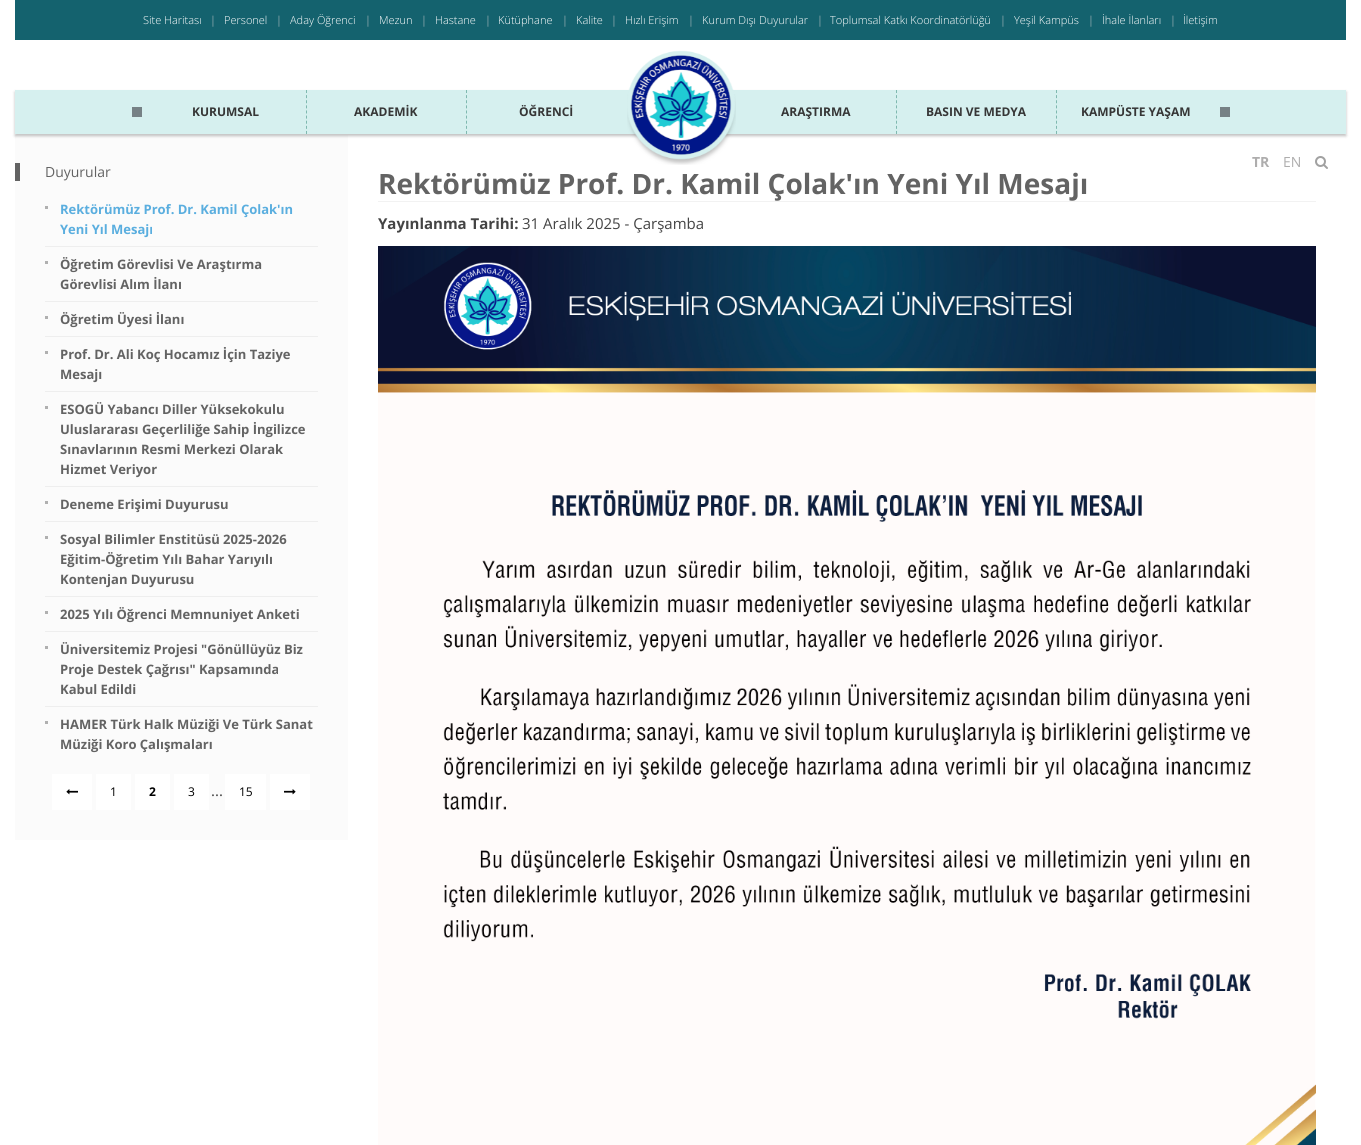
import math
import cairocffi as cairo

surface = cairo.ImageSurface(cairo.FORMAT_RGB24, 1361, 1145)
cr = cairo.Context(surface)
options = cairo.FontOptions()
options.set_hint_metrics(cairo.HINT_METRICS_OFF)
options.set_hint_style(cairo.HINT_STYLE_NONE)
cr.set_font_options(options)
cr.set_miter_limit(4)


def use_color(code):
    cr.set_source_rgb(*(v / 255 for v in bytes.fromhex(code[-6:])))


def round_rect(x, y, w, h, r):
    cr.new_sub_path()
    for i, (u, v) in enumerate([(x + w - r, y + h - r), (x + r, y + h - r), (x + r, y + r), (x + w - r, y + r)]):
        cr.arc(u, v, r, i * math.pi / 2, (i + 1) * math.pi / 2)
    cr.close_path()


def shadow(x, y, w, h, r, blur, alpha):
    cr.push_group_with_content(cairo.CONTENT_ALPHA)
    cr.set_operator(cairo.OPERATOR_SOURCE)
    for i in range(15, -16, -2):
        e = blur * i / 6
        if min(w, h) + 2 * e > 0:
            cr.set_source_rgba(0, 0, 0, alpha * math.erfc((i - 1) / 8.5) / 2)
            round_rect(x - e, y - e, w + 2 * e, h + 2 * e, max(0, min(r + e + blur * .6, min(w, h) / 2 + e)))
            cr.fill()
    cr.mask(cr.pop_group())


def picture(path, x, y, w, h):
    cr.save()
    cr.set_source_surface(cairo.ImageSurface.create_from_png(path), x, y)
    cr.rectangle(x, y, w, h)
    cr.fill()
    cr.restore()


use_color("#ffffff")
cr.paint()
use_color("#14626e")
cr.rectangle(15, 0, 1331, 40)
cr.fill()
cr.select_font_face("Open Sans Light")
cr.set_font_size(11)
use_color("#ffffff")
cr.move_to(143, 24)
cr.show_text("Site Haritası")
use_color("#cccccc")
cr.move_to(210, 24)
cr.show_text("|")
use_color("#ffffff")
cr.move_to(224, 24)
cr.show_text("Personel")
use_color("#cccccc")
cr.move_to(276, 24)
cr.show_text("|")
use_color("#ffffff")
cr.move_to(290, 24)
cr.show_text("Aday Öğrenci")
use_color("#cccccc")
cr.move_to(365, 24)
cr.show_text("|")
use_color("#ffffff")
cr.move_to(379, 24)
cr.show_text("Mezun")
use_color("#cccccc")
cr.move_to(421, 24)
cr.show_text("|")
use_color("#ffffff")
cr.move_to(435, 24)
cr.show_text("Hastane")
use_color("#cccccc")
cr.move_to(485, 24)
cr.show_text("|")
use_color("#ffffff")
cr.move_to(498, 24)
cr.show_text("Kütüphane")
use_color("#cccccc")
cr.move_to(562, 24)
cr.show_text("|")
use_color("#ffffff")
cr.move_to(576, 24)
cr.show_text("Kalite")
use_color("#cccccc")
cr.move_to(611, 24)
cr.show_text("|")
use_color("#ffffff")
cr.move_to(625, 24)
cr.show_text("Hızlı Erişim")
use_color("#cccccc")
cr.move_to(688, 24)
cr.show_text("|")
use_color("#ffffff")
cr.move_to(702, 24)
cr.show_text("Kurum Dışı Duyurular")
use_color("#cccccc")
cr.move_to(817, 24)
cr.show_text("|")
use_color("#ffffff")
cr.move_to(830, 24)
cr.show_text("Toplumsal Katkı Koordinatörlüğü")
use_color("#cccccc")
cr.move_to(1000, 24)
cr.show_text("|")
use_color("#ffffff")
cr.move_to(1014, 24)
cr.show_text("Yeşil Kampüs")
use_color("#cccccc")
cr.move_to(1088, 24)
cr.show_text("|")
use_color("#ffffff")
cr.move_to(1102, 24)
cr.show_text("İhale İlanları")
use_color("#cccccc")
cr.move_to(1170, 24)
cr.show_text("|")
use_color("#ffffff")
cr.move_to(1183, 24)
cr.show_text("İletişim")
use_color("#fbfbfb")
cr.rectangle(15, 135, 333, 705)
cr.fill()
use_color("#000000")
shadow(15, 92, 1331, 44, 0, 1.5, 0.25)
use_color("#d6f0ef")
cr.rectangle(15, 90, 1331, 44)
cr.fill()
picture("img2.png", 627, 94, 109, 71)
picture("img1.png", 627, 50, 108, 110)
use_color("#768185")
cr.rectangle(132, 107, 10, 10)
cr.fill()
cr.select_font_face("Open Sans", cairo.FONT_SLANT_NORMAL, cairo.FONT_WEIGHT_BOLD)
cr.set_font_size(12)
use_color("#363636")
cr.move_to(192, 116)
cr.show_text("KURUMSAL")
cr.new_path()
cr.move_to(306.5, 90)
cr.line_to(306.5, 134)
use_color("#7fb9b0")
cr.set_line_width(1)
cr.set_dash([3, 2.12])
cr.stroke()
use_color("#363636")
cr.move_to(354, 116)
cr.show_text("AKADEMİK")
cr.new_path()
cr.move_to(466.5, 90)
cr.line_to(466.5, 134)
use_color("#7fb9b0")
cr.stroke()
use_color("#363636")
cr.move_to(519, 116)
cr.show_text("ÖĞRENCİ")
cr.move_to(781, 116)
cr.show_text("ARAŞTIRMA")
cr.new_path()
cr.move_to(896.5, 90)
cr.line_to(896.5, 134)
use_color("#7fb9b0")
cr.stroke()
use_color("#363636")
cr.move_to(926, 116)
cr.show_text("BASIN VE MEDYA")
cr.new_path()
cr.move_to(1056.5, 90)
cr.line_to(1056.5, 134)
use_color("#7fb9b0")
cr.stroke()
use_color("#363636")
cr.move_to(1081, 116)
cr.show_text("KAMPÜSTE YAŞAM")
use_color("#768185")
cr.rectangle(1220, 107, 10, 10)
cr.fill()
cr.set_font_size(14)
use_color("#aeadad")
cr.move_to(1252, 167)
cr.show_text("TR")
cr.select_font_face("Open Sans")
cr.move_to(1283, 167)
cr.show_text("EN")
picture("img3.png", 1315, 156, 13, 13)
use_color("#636363")
cr.rectangle(15, 163, 5, 18)
cr.fill()
cr.move_to(45, 177)
cr.show_text("Duyurular")
use_color("#eeeeee")
cr.rectangle(45, 246, 273, 1)
cr.fill()
use_color("#b0b0b0")
cr.rectangle(45, 206, 3, 3)
cr.fill()
cr.select_font_face("Open Sans", cairo.FONT_SLANT_NORMAL, cairo.FONT_WEIGHT_BOLD)
cr.set_font_size(13)
use_color("#5aaedf")
cr.move_to(60, 214)
cr.show_text("Rektörümüz Prof. Dr. Kamil Çolak'ın")
cr.move_to(60, 234)
cr.show_text("Yeni Yıl Mesajı")
use_color("#eeeeee")
cr.rectangle(45, 301, 273, 1)
cr.fill()
use_color("#b0b0b0")
cr.rectangle(45, 261, 3, 3)
cr.fill()
use_color("#636363")
cr.move_to(60, 269)
cr.show_text("Öğretim Görevlisi Ve Araştırma")
cr.move_to(60, 289)
cr.show_text("Görevlisi Alım İlanı")
use_color("#eeeeee")
cr.rectangle(45, 336, 273, 1)
cr.fill()
use_color("#b0b0b0")
cr.rectangle(45, 316, 3, 3)
cr.fill()
use_color("#636363")
cr.move_to(60, 324)
cr.show_text("Öğretim Üyesi İlanı")
use_color("#eeeeee")
cr.rectangle(45, 391, 273, 1)
cr.fill()
use_color("#b0b0b0")
cr.rectangle(45, 351, 3, 3)
cr.fill()
use_color("#636363")
cr.move_to(60, 359)
cr.show_text("Prof. Dr. Ali Koç Hocamız İçin Taziye")
cr.move_to(60, 379)
cr.show_text("Mesajı")
use_color("#eeeeee")
cr.rectangle(45, 486, 273, 1)
cr.fill()
use_color("#b0b0b0")
cr.rectangle(45, 406, 3, 3)
cr.fill()
use_color("#636363")
cr.move_to(60, 414)
cr.show_text("ESOGÜ Yabancı Diller Yüksekokulu")
cr.move_to(60, 434)
cr.show_text("Uluslararası Geçerliliğe Sahip İngilizce")
cr.move_to(60, 454)
cr.show_text("Sınavlarının Resmi Merkezi Olarak")
cr.move_to(60, 474)
cr.show_text("Hizmet Veriyor")
use_color("#eeeeee")
cr.rectangle(45, 521, 273, 1)
cr.fill()
use_color("#b0b0b0")
cr.rectangle(45, 501, 3, 3)
cr.fill()
use_color("#636363")
cr.move_to(60, 509)
cr.show_text("Deneme Erişimi Duyurusu")
use_color("#eeeeee")
cr.rectangle(45, 596, 273, 1)
cr.fill()
use_color("#b0b0b0")
cr.rectangle(45, 536, 3, 3)
cr.fill()
use_color("#636363")
cr.move_to(60, 544)
cr.show_text("Sosyal Bilimler Enstitüsü 2025-2026")
cr.move_to(60, 564)
cr.show_text("Eğitim-Öğretim Yılı Bahar Yarıyılı")
cr.move_to(60, 584)
cr.show_text("Kontenjan Duyurusu")
use_color("#eeeeee")
cr.rectangle(45, 631, 273, 1)
cr.fill()
use_color("#b0b0b0")
cr.rectangle(45, 611, 3, 3)
cr.fill()
use_color("#636363")
cr.move_to(60, 619)
cr.show_text("2025 Yılı Öğrenci Memnuniyet Anketi")
use_color("#eeeeee")
cr.rectangle(45, 706, 273, 1)
cr.fill()
use_color("#b0b0b0")
cr.rectangle(45, 646, 3, 3)
cr.fill()
use_color("#636363")
cr.move_to(60, 654)
cr.show_text("Üniversitemiz Projesi \"Gönüllüyüz Biz")
cr.move_to(60, 674)
cr.show_text("Proje Destek Çağrısı\" Kapsamında")
cr.move_to(60, 694)
cr.show_text("Kabul Edildi")
use_color("#b0b0b0")
cr.rectangle(45, 721, 3, 3)
cr.fill()
use_color("#636363")
cr.move_to(60, 729)
cr.show_text("HAMER Türk Halk Müziği Ve Türk Sanat")
cr.move_to(60, 749)
cr.show_text("Müziği Koro Çalışmaları")
use_color("#ffffff")
cr.rectangle(52, 774, 40, 36)
cr.fill()
picture("img4.png", 66, 789, 12, 6)
cr.rectangle(96, 774, 35, 36)
cr.fill()
cr.select_font_face("Open Sans")
cr.set_font_size(12)
use_color("#000000")
cr.move_to(110, 796)
cr.show_text("1")
use_color("#ffffff")
cr.rectangle(135, 774, 35, 36)
cr.fill()
cr.select_font_face("Open Sans", cairo.FONT_SLANT_NORMAL, cairo.FONT_WEIGHT_BOLD)
use_color("#000000")
cr.move_to(149, 796)
cr.show_text("2")
use_color("#ffffff")
cr.rectangle(174, 774, 35, 36)
cr.fill()
cr.select_font_face("Open Sans")
use_color("#000000")
cr.move_to(188, 796)
cr.show_text("3")
cr.set_font_size(15)
use_color("#444444")
cr.move_to(211, 796)
cr.show_text("...")
use_color("#ffffff")
cr.rectangle(225, 774, 41, 36)
cr.fill()
cr.set_font_size(12)
use_color("#000000")
cr.move_to(239, 796)
cr.show_text("15")
use_color("#ffffff")
cr.rectangle(270, 774, 40, 36)
cr.fill()
picture("img5.png", 284, 789, 12, 6)
use_color("#f2f2f2")
cr.rectangle(378, 201, 938, 1)
cr.fill()
cr.select_font_face("Open Sans", cairo.FONT_SLANT_NORMAL, cairo.FONT_WEIGHT_BOLD)
cr.set_font_size(28)
use_color("#636363")
cr.move_to(378, 194)
cr.show_text("Rektörümüz Prof. Dr. Kamil Çolak'ın Yeni Yıl Mesajı")
cr.set_font_size(15)
use_color("#444444")
cr.move_to(378, 229)
cr.show_text("Yayınlanma Tarihi:")
cr.select_font_face("Open Sans")
cr.move_to(522, 229)
cr.show_text("31 Aralık 2025 - Çarşamba")
picture("img6.png", 378, 246, 938, 899)
surface.write_to_png("result.png")
